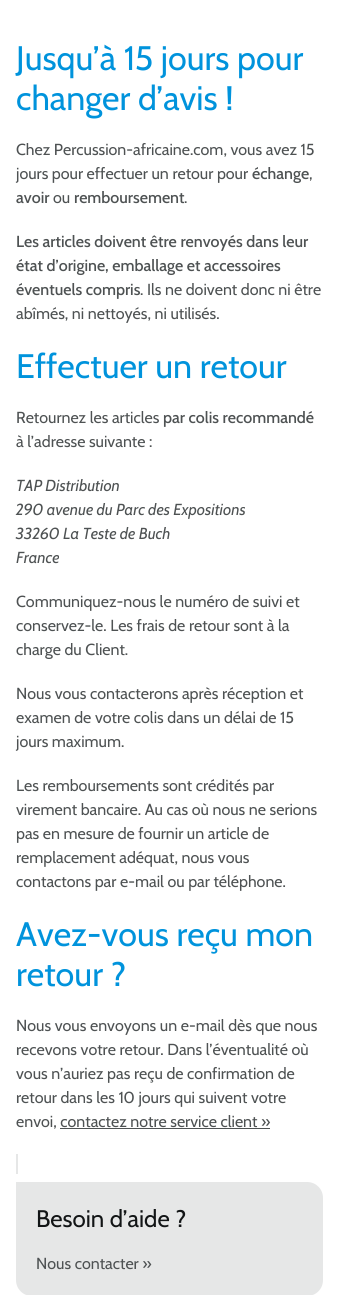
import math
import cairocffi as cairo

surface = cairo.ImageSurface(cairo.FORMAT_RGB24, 339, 1295)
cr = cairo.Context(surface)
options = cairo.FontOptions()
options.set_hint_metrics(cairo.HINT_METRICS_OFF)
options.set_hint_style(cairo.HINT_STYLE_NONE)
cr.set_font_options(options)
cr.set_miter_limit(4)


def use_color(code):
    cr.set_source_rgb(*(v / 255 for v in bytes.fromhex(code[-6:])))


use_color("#ffffff")
cr.paint()
cr.select_font_face("Cabin")
cr.set_font_size(34)
use_color("#0093dc")
cr.move_to(16, 70)
cr.show_text("Jusqu’à 15 jours pour")
cr.move_to(16, 110)
cr.show_text("changer d’avis !")
cr.set_font_size(16)
use_color("#4e5253")
cr.move_to(16, 155)
cr.show_text("Chez Percussion-africaine.com, vous avez 15")
cr.move_to(16, 179)
cr.show_text("jours pour effectuer un retour pour")
cr.select_font_face("Cabin Medium")
cr.move_to(252, 179)
cr.show_text("échange")
cr.select_font_face("Cabin")
cr.move_to(309, 179)
cr.show_text(",")
cr.select_font_face("Cabin Medium")
cr.move_to(16, 203)
cr.show_text("avoir")
cr.select_font_face("Cabin")
cr.move_to(53, 203)
cr.show_text("ou")
cr.select_font_face("Cabin Medium")
cr.move_to(74, 203)
cr.show_text("remboursement")
cr.select_font_face("Cabin")
cr.move_to(184, 203)
cr.show_text(".")
cr.select_font_face("Cabin Medium")
cr.move_to(16, 247)
cr.show_text("Les articles doivent être renvoyés dans leur")
cr.move_to(16, 271)
cr.show_text("état d’origine, emballage et accessoires")
cr.move_to(16, 295)
cr.show_text("éventuels compris")
cr.select_font_face("Cabin")
cr.move_to(140, 295)
cr.show_text(". Ils ne doivent donc ni être")
cr.move_to(16, 319)
cr.show_text("abîmés, ni nettoyés, ni utilisés.")
cr.set_font_size(34)
use_color("#0093dc")
cr.move_to(16, 378)
cr.show_text("Effectuer un retour")
cr.set_font_size(16)
use_color("#4e5253")
cr.move_to(16, 423)
cr.show_text("Retournez les articles")
cr.select_font_face("Cabin Medium")
cr.move_to(163, 423)
cr.show_text("par colis recommandé")
cr.select_font_face("Cabin")
cr.move_to(16, 447)
cr.show_text("à l’adresse suivante :")
cr.select_font_face("Cabin", cairo.FONT_SLANT_ITALIC)
cr.move_to(16, 491)
cr.show_text("TAP Distribution")
cr.move_to(16, 515)
cr.show_text("290 avenue du Parc des Expositions")
cr.move_to(16, 539)
cr.show_text("33260 La Teste de Buch")
cr.move_to(16, 563)
cr.show_text("France")
cr.select_font_face("Cabin")
cr.move_to(16, 607)
cr.show_text("Communiquez-nous le numéro de suivi et")
cr.move_to(16, 631)
cr.show_text("conservez-le. Les frais de retour sont à la")
cr.move_to(16, 655)
cr.show_text("charge du Client.")
cr.move_to(16, 699)
cr.show_text("Nous vous contacterons après réception et")
cr.move_to(16, 723)
cr.show_text("examen de votre colis dans un délai de 15")
cr.move_to(16, 747)
cr.show_text("jours maximum.")
cr.move_to(16, 791)
cr.show_text("Les remboursements sont crédités par")
cr.move_to(16, 815)
cr.show_text("virement bancaire. Au cas où nous ne serions")
cr.move_to(16, 839)
cr.show_text("pas en mesure de fournir un article de")
cr.move_to(16, 863)
cr.show_text("remplacement adéquat, nous vous")
cr.move_to(16, 887)
cr.show_text("contactons par e-mail ou par téléphone.")
cr.set_font_size(34)
use_color("#0093dc")
cr.move_to(16, 946)
cr.show_text("Avez-vous reçu mon")
cr.move_to(16, 986)
cr.show_text("retour ?")
cr.set_font_size(16)
use_color("#4e5253")
cr.move_to(16, 1031)
cr.show_text("Nous vous envoyons un e-mail dès que nous")
cr.move_to(16, 1055)
cr.show_text("recevons votre retour. Dans l’éventualité où")
cr.move_to(16, 1079)
cr.show_text("vous n’auriez pas reçu de confirmation de")
cr.move_to(16, 1103)
cr.show_text("retour dans les 10 jours qui suivent votre")
cr.move_to(16, 1127)
cr.show_text("envoi, contactez notre service client »")
cr.rectangle(60, 1128, 210, 1)
cr.fill()
use_color("#e6e7e7")
cr.rectangle(16, 1154, 2, 20)
cr.fill()
cr.new_path()
cr.move_to(16, 1182)
cr.line_to(307, 1182)
cr.curve_to(316, 1182, 323, 1189, 323, 1198)
cr.line_to(323, 1280)
cr.curve_to(323, 1289, 316, 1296, 307, 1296)
cr.line_to(32, 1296)
cr.curve_to(23, 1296, 16, 1289, 16, 1280)
cr.close_path()
cr.fill()
cr.set_font_size(24)
use_color("#121516")
cr.move_to(36, 1227)
cr.show_text("Besoin d’aide ?")
cr.set_font_size(16)
use_color("#4e5253")
cr.move_to(36, 1269)
cr.show_text("Nous contacter »")
surface.write_to_png("result.png")
